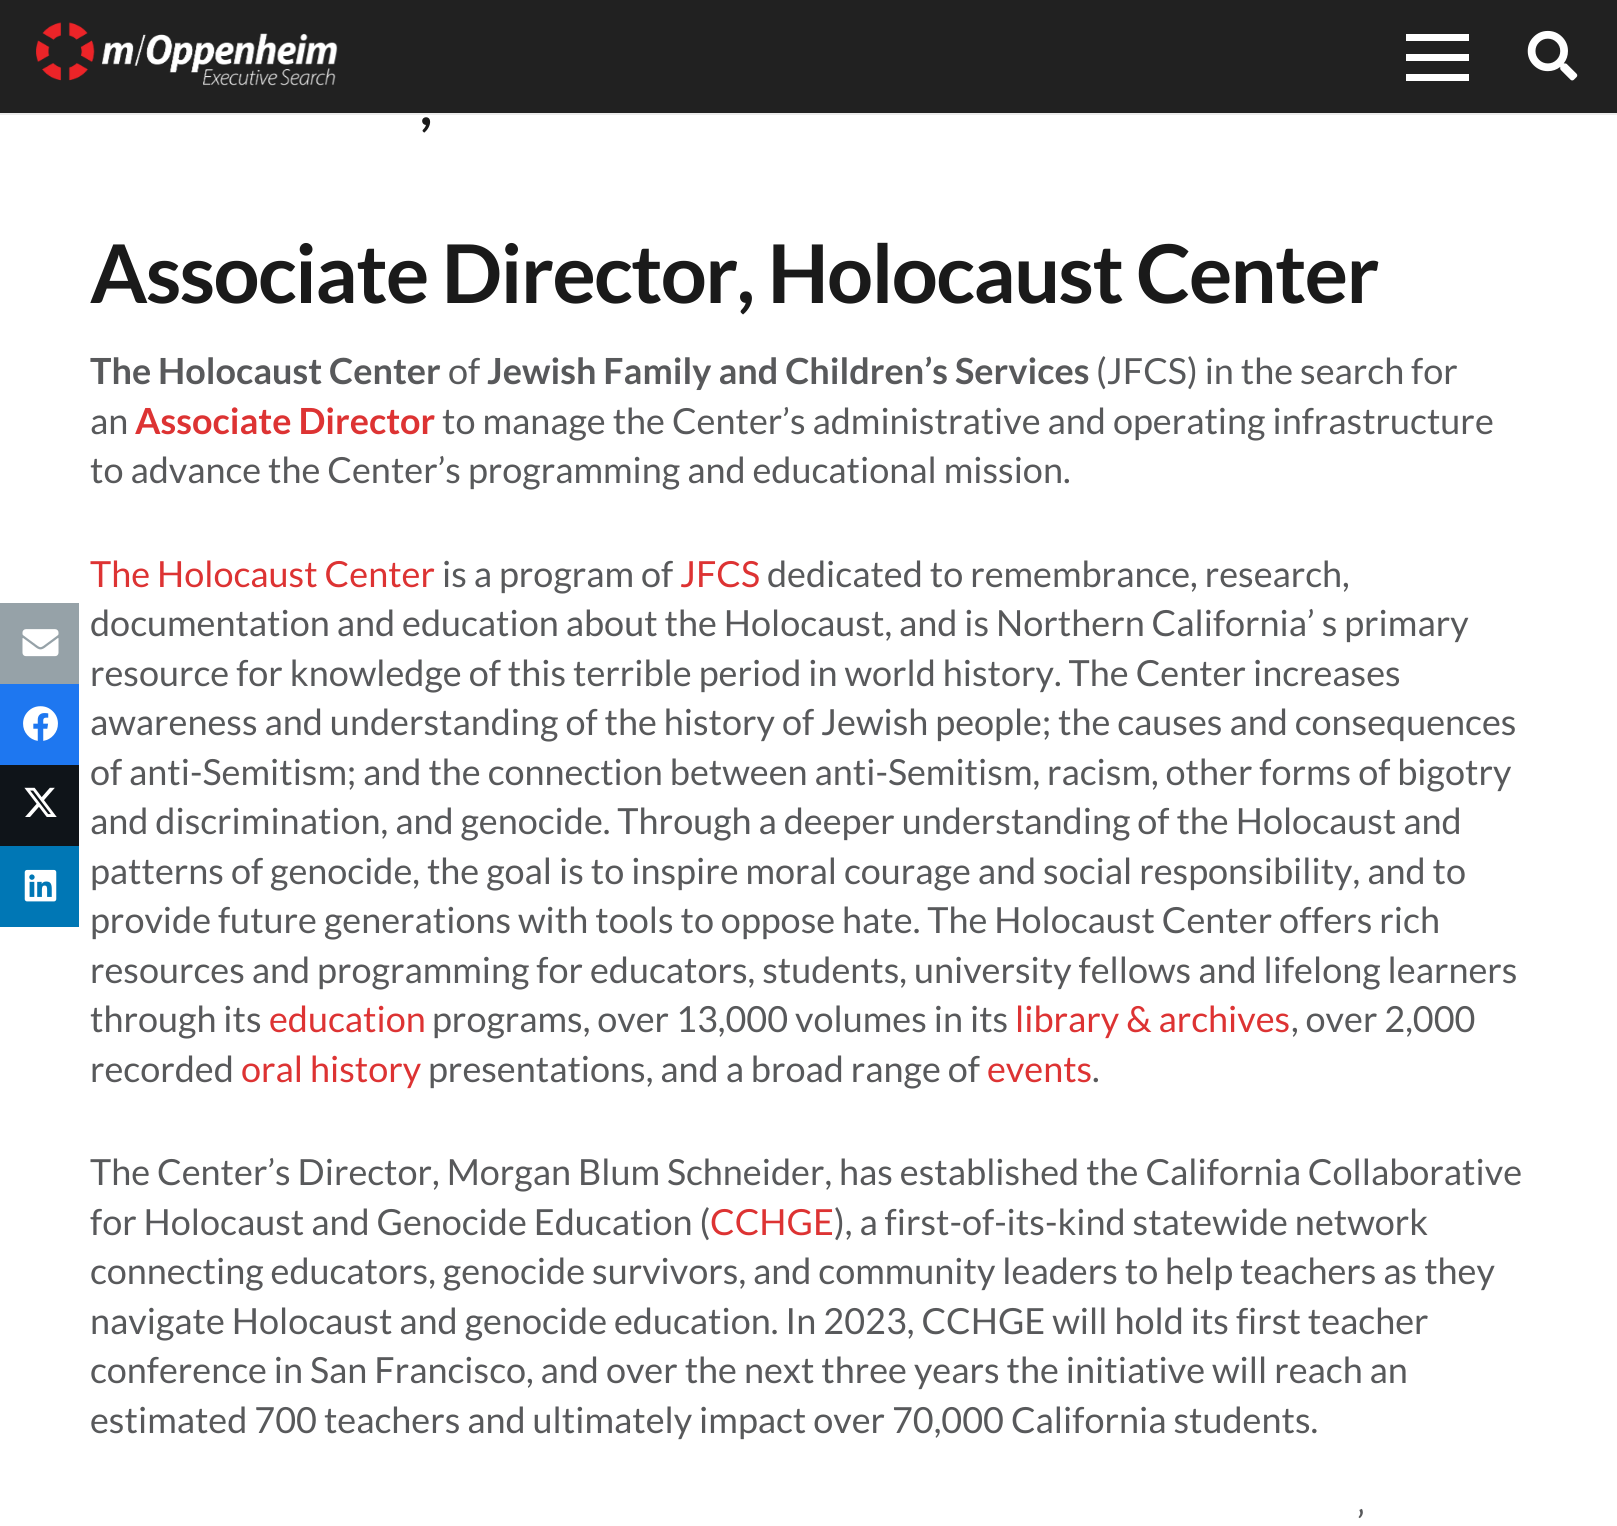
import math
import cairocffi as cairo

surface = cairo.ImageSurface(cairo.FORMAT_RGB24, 1617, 1526)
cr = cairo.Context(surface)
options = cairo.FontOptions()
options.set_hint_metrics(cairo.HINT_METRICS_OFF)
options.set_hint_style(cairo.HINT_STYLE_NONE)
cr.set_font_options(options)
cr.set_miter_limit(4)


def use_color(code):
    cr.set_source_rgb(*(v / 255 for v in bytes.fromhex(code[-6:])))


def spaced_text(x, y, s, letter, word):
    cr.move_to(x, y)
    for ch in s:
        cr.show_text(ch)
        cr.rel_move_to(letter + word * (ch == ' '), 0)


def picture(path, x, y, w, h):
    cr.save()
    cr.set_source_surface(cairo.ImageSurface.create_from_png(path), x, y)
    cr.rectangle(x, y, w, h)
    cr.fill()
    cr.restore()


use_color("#ffffff")
cr.paint()
cr.set_source_rgba(0, 0, 0, 0.08)
cr.new_path()
cr.move_to(0, 112)
cr.line_to(0, 115)
cr.line_to(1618, 115)
cr.line_to(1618, 2)
cr.line_to(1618, 112)
cr.close_path()
cr.fill()
use_color("#212121")
cr.rectangle(0, 0, 1617, 113)
cr.fill()
picture("img1.png", 36, 22, 302, 64)
use_color("#ffffff")
cr.rectangle(1406, 54, 63, 7)
cr.fill()
cr.rectangle(1406, 34, 63, 7)
cr.fill()
cr.rectangle(1406, 74, 63, 7)
cr.fill()
picture("img2.png", 1527, 30, 51, 51)
use_color("#96a2a8")
cr.rectangle(0, 603, 79, 81)
cr.fill()
picture("img3.png", 22, 629, 37, 28)
use_color("#1e77f0")
cr.rectangle(0, 684, 79, 81)
cr.fill()
picture("img4.png", 23, 706, 35, 35)
use_color("#0f1419")
cr.rectangle(0, 765, 79, 81)
cr.fill()
picture("img5.png", 24, 787, 33, 30)
use_color("#0077b5")
cr.rectangle(0, 846, 79, 81)
cr.fill()
picture("img6.png", 24, 869, 33, 33)
cr.select_font_face("Lato", cairo.FONT_SLANT_NORMAL, cairo.FONT_WEIGHT_BOLD)
cr.set_font_size(54)
use_color("#1a1a1a")
cr.move_to(420, 125)
cr.show_text(",")
cr.set_font_size(81)
spaced_text(90, 303, "Associate Director, Holocaust Center", -1.6, 0)
cr.set_font_size(36)
use_color("#58595b")
cr.move_to(90, 384)
cr.show_text("The Holocaust Center")
cr.select_font_face("Lato")
cr.move_to(448, 384)
cr.show_text("of")
cr.select_font_face("Lato", cairo.FONT_SLANT_NORMAL, cairo.FONT_WEIGHT_BOLD)
cr.move_to(487, 384)
cr.show_text("Jewish Family and Children’s Services")
cr.select_font_face("Lato")
cr.move_to(1096, 384)
cr.show_text("(JFCS) in the search for")
cr.move_to(90, 434)
cr.show_text("an")
cr.select_font_face("Lato", cairo.FONT_SLANT_NORMAL, cairo.FONT_WEIGHT_BOLD)
use_color("#dd3333")
cr.move_to(135, 434)
cr.show_text("Associate Director")
cr.select_font_face("Lato")
use_color("#58595b")
cr.move_to(442, 434)
cr.show_text("to manage the Center’s administrative and operating infrastructure")
cr.move_to(90, 483)
cr.show_text("to advance the Center’s programming and educational mission.")
use_color("#dd3333")
cr.move_to(90, 587)
cr.show_text("The Holocaust Center")
use_color("#58595b")
cr.move_to(442, 587)
cr.show_text("is a program of")
use_color("#dd3333")
cr.move_to(680, 587)
cr.show_text("JFCS")
use_color("#58595b")
cr.move_to(767, 587)
cr.show_text("dedicated to remembrance, research,")
cr.move_to(90, 636)
cr.show_text("documentation and education about the Holocaust, and is Northern California’ s primary")
cr.move_to(90, 686)
cr.show_text("resource for knowledge of this terrible period in world history. The Center increases")
cr.move_to(90, 735)
cr.show_text("awareness and understanding of the history of Jewish people; the causes and consequences")
cr.move_to(90, 785)
cr.show_text("of anti-Semitism; and the connection between anti-Semitism, racism, other forms of bigotry")
cr.move_to(90, 834)
cr.show_text("and discrimination, and genocide. Through a deeper understanding of the Holocaust and")
cr.move_to(90, 884)
cr.show_text("patterns of genocide, the goal is to inspire moral courage and social responsibility, and to")
cr.move_to(90, 933)
cr.show_text("provide future generations with tools to oppose hate. The Holocaust Center offers rich")
cr.move_to(90, 983)
cr.show_text("resources and programming for educators, students, university fellows and lifelong learners")
cr.move_to(90, 1032)
cr.show_text("through its")
use_color("#dd3333")
cr.move_to(269, 1032)
cr.show_text("education")
use_color("#58595b")
cr.move_to(432, 1032)
cr.show_text("programs, over 13,000 volumes in its")
use_color("#dd3333")
cr.move_to(1015, 1032)
cr.show_text("library & archives")
use_color("#58595b")
cr.move_to(1291, 1032)
cr.show_text(", over 2,000")
cr.move_to(90, 1082)
cr.show_text("recorded")
use_color("#dd3333")
cr.move_to(241, 1082)
cr.show_text("oral history")
use_color("#58595b")
cr.move_to(428, 1082)
cr.show_text("presentations, and a broad range of")
use_color("#dd3333")
cr.move_to(987, 1082)
cr.show_text("events")
use_color("#58595b")
cr.move_to(1092, 1082)
cr.show_text(".")
cr.move_to(90, 1185)
cr.show_text("The Center’s Director, Morgan Blum Schneider, has established the California Collaborative")
cr.move_to(90, 1235)
cr.show_text("for Holocaust and Genocide Education (")
use_color("#dd3333")
cr.move_to(710, 1235)
cr.show_text("CCHGE")
use_color("#58595b")
cr.move_to(834, 1235)
cr.show_text("), a first-of-its-kind statewide network")
cr.move_to(90, 1284)
cr.show_text("connecting educators, genocide survivors, and community leaders to help teachers as they")
cr.move_to(90, 1334)
cr.show_text("navigate Holocaust and genocide education. In 2023, CCHGE will hold its first teacher")
cr.move_to(90, 1383)
cr.show_text("conference in San Francisco, and over the next three years the initiative will reach an")
cr.move_to(90, 1433)
cr.show_text("estimated 700 teachers and ultimately impact over 70,000 California students.")
cr.move_to(1357, 1536)
cr.show_text("’")
surface.write_to_png("result.png")
